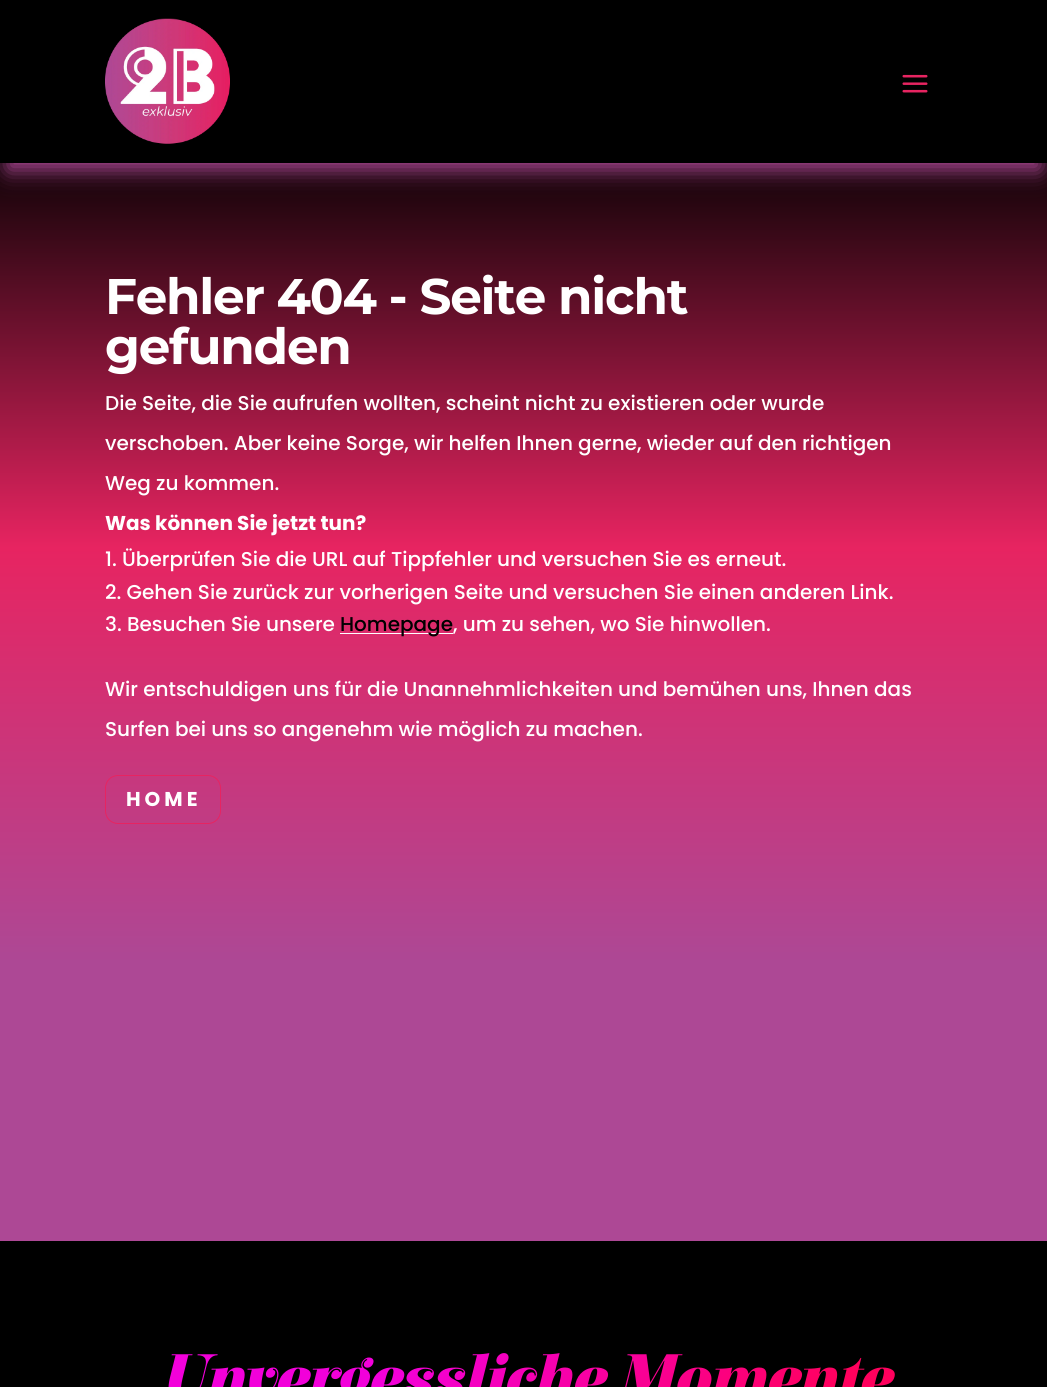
import math
import cairocffi as cairo

surface = cairo.ImageSurface(cairo.FORMAT_RGB24, 1047, 1387)
cr = cairo.Context(surface)
options = cairo.FontOptions()
options.set_hint_metrics(cairo.HINT_METRICS_OFF)
options.set_hint_style(cairo.HINT_STYLE_NONE)
cr.set_font_options(options)
cr.set_miter_limit(4)


def use_color(code):
    cr.set_source_rgb(*(v / 255 for v in bytes.fromhex(code[-6:])))


def spaced_text(x, y, s, letter, word):
    cr.move_to(x, y)
    for ch in s:
        cr.show_text(ch)
        cr.rel_move_to(letter + word * (ch == ' '), 0)


def round_rect(x, y, w, h, r):
    cr.new_sub_path()
    for i, (u, v) in enumerate([(x + w - r, y + h - r), (x + r, y + h - r), (x + r, y + r), (x + w - r, y + r)]):
        cr.arc(u, v, r, i * math.pi / 2, (i + 1) * math.pi / 2)
    cr.close_path()


def shadow(x, y, w, h, r, blur, alpha):
    cr.push_group_with_content(cairo.CONTENT_ALPHA)
    cr.set_operator(cairo.OPERATOR_SOURCE)
    for i in range(15, -16, -2):
        e = blur * i / 6
        if min(w, h) + 2 * e > 0:
            cr.set_source_rgba(0, 0, 0, alpha * math.erfc((i - 1) / 8.5) / 2)
            round_rect(x - e, y - e, w + 2 * e, h + 2 * e, max(0, min(r + e + blur * .6, min(w, h) / 2 + e)))
            cr.fill()
    cr.mask(cr.pop_group())


def picture(path, x, y, w, h):
    cr.save()
    cr.set_source_surface(cairo.ImageSurface.create_from_png(path), x, y)
    cr.rectangle(x, y, w, h)
    cr.fill()
    cr.restore()


use_color("#ffffff")
cr.paint()
gradient = cairo.LinearGradient(524, -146, 524, 1241)
gradient.add_color_stop_rgba(0.2, 0, 0, 0, 1)
gradient.add_color_stop_rgba(0.5, 0.906, 0.141, 0.38, 1)
gradient.add_color_stop_rgba(0.8, 0.678, 0.282, 0.584, 1)
cr.set_source(gradient)
cr.rectangle(0, 163, 1047, 1078)
cr.fill()
use_color("#ad4895")
shadow(8, 23, 1032, 147, 0, 11, 1)
use_color("#000000")
cr.rectangle(0, 0, 1047, 163)
cr.fill()
picture("img1.png", 105, 18, 125, 126)
picture("img2.png", 902, 74, 26, 19)
cr.select_font_face("Montserrat", cairo.FONT_SLANT_NORMAL, cairo.FONT_WEIGHT_BOLD)
cr.set_font_size(50)
use_color("#ffffff")
spaced_text(105, 314, "Fehler 404 - Seite nicht", -1.25, 0)
spaced_text(105, 364, "gefunden", -1.25, 0)
cr.select_font_face("Poppins Medium")
cr.set_font_size(20)
cr.move_to(105, 410)
cr.show_text("Die Seite, die Sie aufrufen wollten, scheint nicht zu existieren oder wurde")
cr.move_to(105, 450)
cr.show_text("verschoben. Aber keine Sorge, wir helfen Ihnen gerne, wieder auf den richtigen")
cr.move_to(105, 490)
cr.show_text("Weg zu kommen.")
cr.select_font_face("Poppins", cairo.FONT_SLANT_NORMAL, cairo.FONT_WEIGHT_BOLD)
cr.move_to(105, 530)
cr.show_text("Was können Sie jetzt tun?")
cr.select_font_face("Poppins Medium")
cr.move_to(105, 566)
cr.show_text("1. Überprüfen Sie die URL auf Tippfehler und versuchen Sie es erneut.")
cr.move_to(105, 599)
cr.show_text("2. Gehen Sie zurück zur vorherigen Seite und versuchen Sie einen anderen Link.")
cr.move_to(105, 631)
cr.show_text("3. Besuchen Sie unsere")
cr.rectangle(340, 633, 113, 1)
cr.fill()
use_color("#000000")
cr.move_to(340, 631)
cr.show_text("Homepage")
use_color("#ffffff")
cr.move_to(453, 631)
cr.show_text(", um zu sehen, wo Sie hinwollen.")
cr.move_to(105, 696)
cr.show_text("Wir entschuldigen uns für die Unannehmlichkeiten und bemühen uns, Ihnen das")
cr.move_to(105, 736)
cr.show_text("Surfen bei uns so angenehm wie möglich zu machen.")
round_rect(105.5, 775.5, 115, 48, 12.5)
use_color("#e72461")
cr.set_line_width(1)
cr.stroke()
cr.select_font_face("Poppins", cairo.FONT_SLANT_NORMAL, cairo.FONT_WEIGHT_BOLD)
use_color("#ffffff")
spaced_text(126, 806, "HOME", 4, 0)
use_color("#000000")
cr.rectangle(0, 1241, 1047, 146)
cr.fill()
cr.select_font_face("Elsie Black", cairo.FONT_SLANT_ITALIC)
cr.set_font_size(62.5)
gradient = cairo.LinearGradient(238, 1183, 810, 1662)
gradient.add_color_stop_rgba(0.32, 0.949, 0, 0.855, 1)
gradient.add_color_stop_rgba(0.79, 1, 0, 0.365, 1)
cr.set_source(gradient)
spaced_text(159, 1398, "Unvergessliche Momente", -1.25, 0)
surface.write_to_png("result.png")
